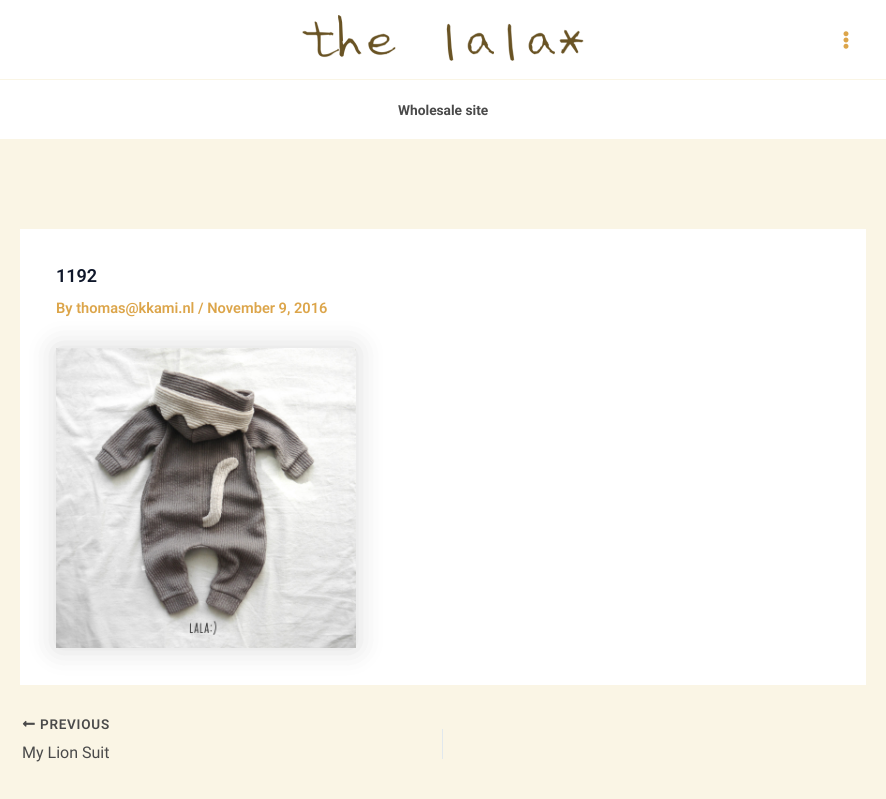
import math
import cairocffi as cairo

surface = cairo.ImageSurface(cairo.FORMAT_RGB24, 886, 799)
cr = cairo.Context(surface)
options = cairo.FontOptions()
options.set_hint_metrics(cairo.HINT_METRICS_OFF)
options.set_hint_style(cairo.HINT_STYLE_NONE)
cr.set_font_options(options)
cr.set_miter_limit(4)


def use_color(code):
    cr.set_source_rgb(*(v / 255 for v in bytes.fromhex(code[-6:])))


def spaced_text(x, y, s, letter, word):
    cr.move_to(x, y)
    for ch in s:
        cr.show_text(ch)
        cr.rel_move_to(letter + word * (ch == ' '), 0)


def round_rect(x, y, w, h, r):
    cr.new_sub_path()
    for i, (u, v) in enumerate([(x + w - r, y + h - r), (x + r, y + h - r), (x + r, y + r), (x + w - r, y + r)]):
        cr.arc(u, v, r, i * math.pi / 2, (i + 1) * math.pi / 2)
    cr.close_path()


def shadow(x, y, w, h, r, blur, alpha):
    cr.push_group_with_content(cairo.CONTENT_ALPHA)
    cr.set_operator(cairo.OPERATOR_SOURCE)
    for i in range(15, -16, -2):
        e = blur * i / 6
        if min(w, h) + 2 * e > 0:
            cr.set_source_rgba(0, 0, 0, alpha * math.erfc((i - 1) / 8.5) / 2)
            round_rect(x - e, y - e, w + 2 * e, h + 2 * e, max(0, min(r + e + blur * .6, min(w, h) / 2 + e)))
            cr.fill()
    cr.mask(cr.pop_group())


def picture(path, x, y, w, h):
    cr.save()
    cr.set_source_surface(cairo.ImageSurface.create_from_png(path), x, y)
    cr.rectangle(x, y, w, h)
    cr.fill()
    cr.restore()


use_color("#faf5e5")
cr.paint()
use_color("#ffffff")
cr.rectangle(0, 0, 886, 79)
cr.fill()
picture("img1.png", 302, 15, 282, 46)
picture("img2.png", 843, 31, 6, 18)
cr.rectangle(0, 80, 886, 59)
cr.fill()
cr.select_font_face("Roboto", cairo.FONT_SLANT_NORMAL, cairo.FONT_WEIGHT_BOLD)
cr.set_font_size(13.75)
use_color("#4a4a4a")
cr.move_to(398, 115)
cr.show_text("Wholesale site")
use_color("#ffffff")
cr.rectangle(20, 229, 846, 456)
cr.fill()
cr.select_font_face("Roboto SemiBold")
cr.set_font_size(18)
use_color("#0f172a")
cr.move_to(56, 282)
cr.show_text("1192")
cr.set_font_size(14.6)
use_color("#dca54a")
cr.move_to(56, 313)
cr.show_text("By thomas@kkami.nl / November 9, 2016")
use_color("#000000")
shadow(56, 348, 300, 300, 0, 15, 0.15)
picture("img3.png", 56, 348, 300, 300)
picture("img4.png", 22, 720, 13, 7)
cr.set_font_size(13.5)
use_color("#4a4a4a")
spaced_text(40, 729, "PREVIOUS", 0.75, 0)
cr.select_font_face("Roboto")
cr.set_font_size(16)
cr.move_to(22, 758)
cr.show_text("My Lion Suit")
use_color("#e1e8ed")
cr.rectangle(442, 729, 1, 30)
cr.fill()
surface.write_to_png("result.png")
